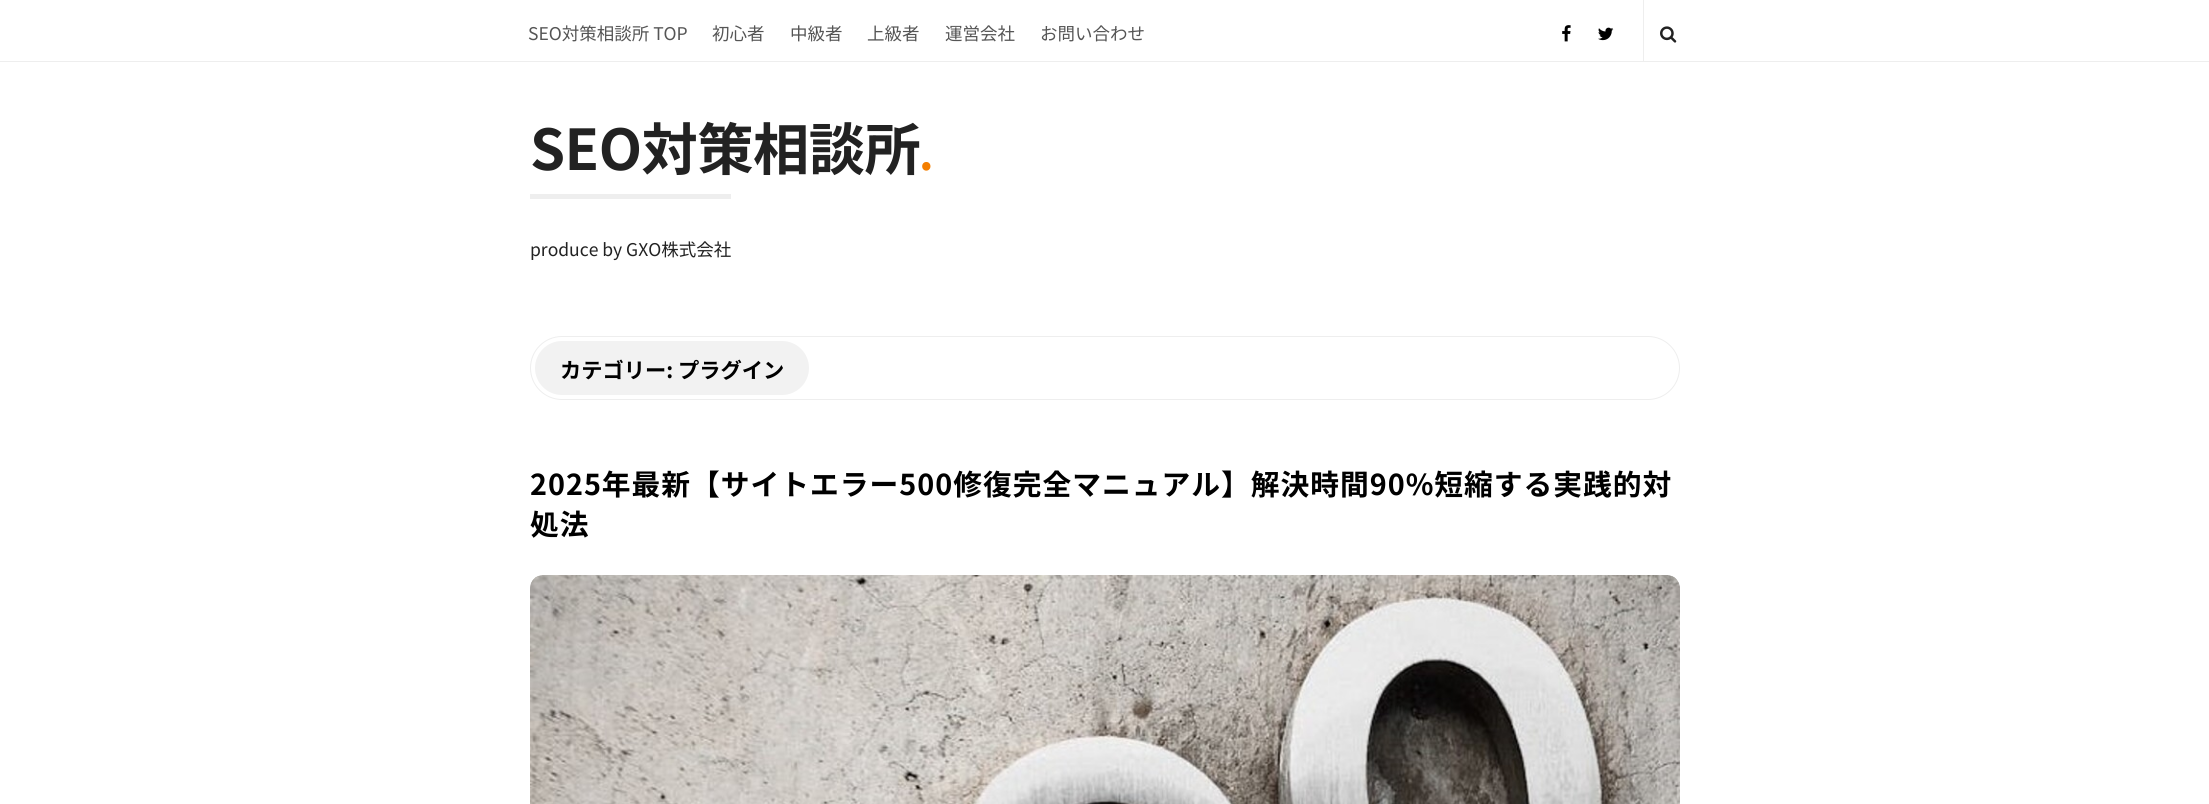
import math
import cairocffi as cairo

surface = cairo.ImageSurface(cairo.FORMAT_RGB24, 2209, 804)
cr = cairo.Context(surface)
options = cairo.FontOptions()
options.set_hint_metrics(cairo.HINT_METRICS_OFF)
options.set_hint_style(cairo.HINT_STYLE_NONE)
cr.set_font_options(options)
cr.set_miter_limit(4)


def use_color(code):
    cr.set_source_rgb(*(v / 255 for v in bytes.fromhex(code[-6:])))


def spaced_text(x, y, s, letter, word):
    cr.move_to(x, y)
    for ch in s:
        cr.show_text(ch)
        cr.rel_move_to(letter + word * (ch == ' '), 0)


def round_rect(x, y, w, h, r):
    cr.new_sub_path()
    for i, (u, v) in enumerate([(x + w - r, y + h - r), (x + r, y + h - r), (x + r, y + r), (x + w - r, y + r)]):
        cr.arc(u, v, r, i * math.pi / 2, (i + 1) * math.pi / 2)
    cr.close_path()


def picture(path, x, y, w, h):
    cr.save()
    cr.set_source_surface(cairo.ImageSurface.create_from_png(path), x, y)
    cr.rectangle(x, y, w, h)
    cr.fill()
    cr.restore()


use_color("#ffffff")
cr.paint()
use_color("#eeeeee")
cr.rectangle(0, 61, 2209, 1)
cr.fill()
cr.select_font_face("Noto Sans JP")
cr.set_font_size(17.5)
use_color("#555555")
cr.move_to(528, 40)
cr.show_text("SEO対策相談所 TOP")
cr.move_to(712, 40)
cr.show_text("初心者")
cr.move_to(790, 40)
cr.show_text("中級者")
cr.move_to(867, 40)
cr.show_text("上級者")
cr.move_to(945, 40)
cr.show_text("運営会社")
cr.move_to(1040, 40)
cr.show_text("お問い合わせ")
picture("img1.png", 1562, 25, 9, 17)
picture("img2.png", 1598, 27, 16, 14)
use_color("#eeeeee")
cr.rectangle(1643, 0, 1, 61)
cr.fill()
picture("img3.png", 1660, 26, 17, 17)
cr.select_font_face("Noto Sans JP", cairo.FONT_SLANT_NORMAL, cairo.FONT_WEIGHT_BOLD)
cr.set_font_size(56.25)
use_color("#222222")
spaced_text(530, 170, "SEO対策相談所", -0.5, 0)
cr.set_font_size(45)
use_color("#f47e00")
spaced_text(919, 170, ".", -0.5, 0)
use_color("#eeeeee")
cr.rectangle(530, 194, 201, 5)
cr.fill()
cr.select_font_face("Noto Sans JP")
cr.set_font_size(17.5)
use_color("#222222")
cr.move_to(530, 256)
cr.show_text("produce by GXO株式会社")
round_rect(530.5, 336.5, 1149, 63, 31.5)
use_color("#eeeeee")
cr.set_line_width(1)
cr.stroke()
use_color("#f2f2f2")
round_rect(535, 341, 274, 54, 27)
cr.fill()
cr.select_font_face("Noto Sans JP", cairo.FONT_SLANT_NORMAL, cairo.FONT_WEIGHT_BOLD)
cr.set_font_size(21.25)
use_color("#000000")
cr.move_to(560, 378)
cr.show_text("カテゴリー: プラグイン")
cr.set_font_size(28.75)
spaced_text(530, 495, "2025年最新【サイトエラー500修復完全マニュアル】解決時間90%短縮する実践的対", 1, 0)
spaced_text(530, 535, "処法", 1, 0)
picture("img4.png", 530, 575, 1150, 229)
surface.write_to_png("result.png")
